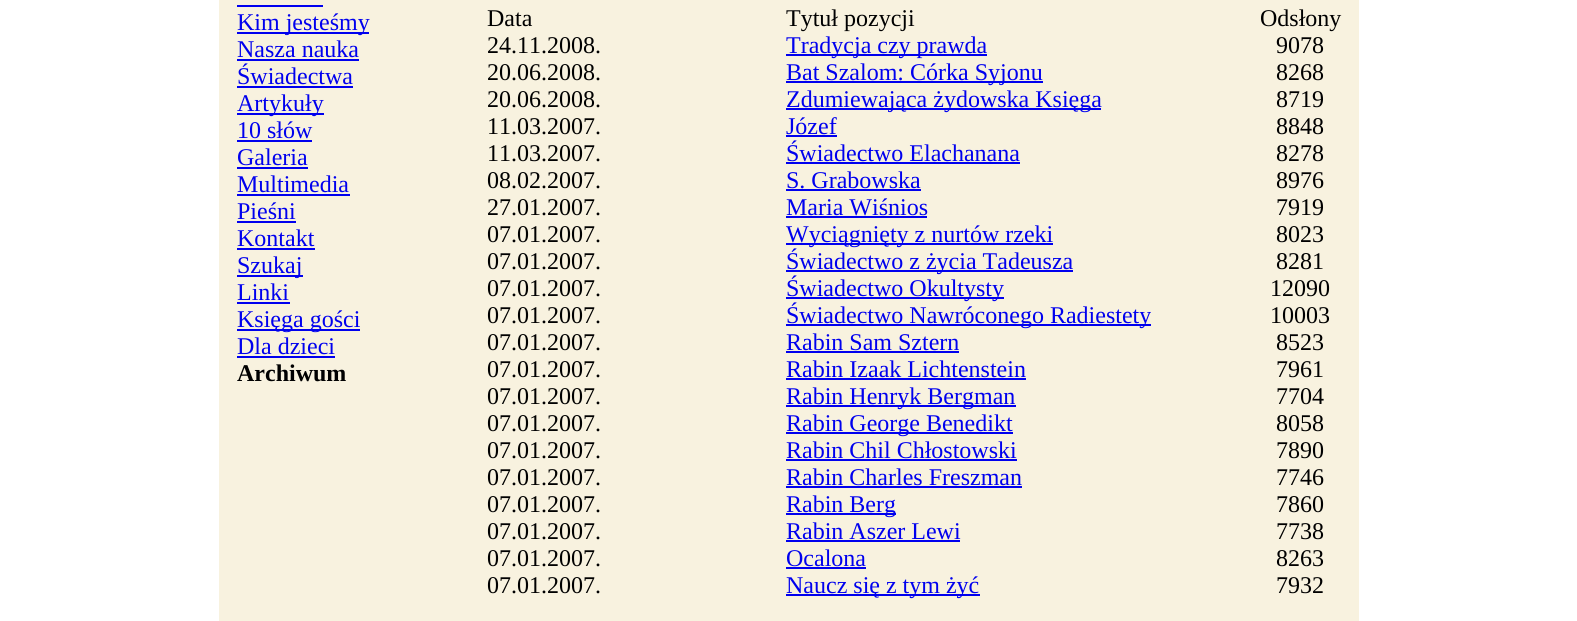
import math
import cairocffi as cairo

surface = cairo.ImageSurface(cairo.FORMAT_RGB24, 1577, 621)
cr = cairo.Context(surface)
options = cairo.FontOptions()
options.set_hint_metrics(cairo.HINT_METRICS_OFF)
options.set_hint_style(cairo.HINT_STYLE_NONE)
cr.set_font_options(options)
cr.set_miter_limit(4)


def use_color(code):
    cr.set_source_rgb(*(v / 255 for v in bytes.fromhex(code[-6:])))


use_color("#ffffff")
cr.paint()
use_color("#f8f2df")
cr.rectangle(219, 0, 1140, 621)
cr.fill()
use_color("#0000ee")
cr.rectangle(237, 5, 86, 2)
cr.fill()
cr.rectangle(237, 32, 132, 2)
cr.fill()
cr.select_font_face("Liberation Serif")
cr.set_font_size(24)
cr.move_to(237, 30)
cr.show_text("Kim jesteśmy")
cr.move_to(237, 57)
cr.show_text("Nasza nauka")
cr.rectangle(237, 59, 122, 2)
cr.fill()
cr.move_to(237, 84)
cr.show_text("Świadectwa")
cr.rectangle(237, 86, 116, 2)
cr.fill()
cr.rectangle(237, 113, 87, 2)
cr.fill()
cr.move_to(237, 111)
cr.show_text("Artykuły")
cr.move_to(237, 138)
cr.show_text("10 słów")
cr.rectangle(237, 140, 75, 2)
cr.fill()
cr.move_to(237, 165)
cr.show_text("Galeria")
cr.rectangle(237, 167, 71, 2)
cr.fill()
cr.move_to(237, 192)
cr.show_text("Multimedia")
cr.rectangle(237, 194, 113, 2)
cr.fill()
cr.move_to(237, 219)
cr.show_text("Pieśni")
cr.rectangle(237, 221, 59, 2)
cr.fill()
cr.move_to(237, 246)
cr.show_text("Kontakt")
cr.rectangle(237, 248, 78, 2)
cr.fill()
cr.rectangle(237, 275, 66, 2)
cr.fill()
cr.move_to(237, 273)
cr.show_text("Szukaj")
cr.move_to(237, 300)
cr.show_text("Linki")
cr.rectangle(237, 302, 53, 2)
cr.fill()
cr.rectangle(237, 329, 123, 2)
cr.fill()
cr.move_to(237, 327)
cr.show_text("Księga gości")
cr.move_to(237, 354)
cr.show_text("Dla dzieci")
cr.rectangle(237, 356, 98, 2)
cr.fill()
cr.select_font_face("Liberation Serif", cairo.FONT_SLANT_NORMAL, cairo.FONT_WEIGHT_BOLD)
use_color("#000000")
cr.move_to(237, 381)
cr.show_text("Archiwum")
cr.select_font_face("Liberation Serif")
cr.move_to(487, 26)
cr.show_text("Data")
cr.move_to(786, 26)
cr.show_text("Tytuł pozycji")
cr.move_to(1260, 26)
cr.show_text("Odsłony")
cr.move_to(487, 53)
cr.show_text("24.11.2008.")
use_color("#0000ee")
cr.rectangle(786, 54, 201, 2)
cr.fill()
cr.move_to(786, 53)
cr.show_text("Tradycja czy prawda")
use_color("#000000")
cr.move_to(1276, 53)
cr.show_text("9078")
cr.move_to(487, 80)
cr.show_text("20.06.2008.")
use_color("#0000ee")
cr.rectangle(786, 81, 257, 2)
cr.fill()
cr.move_to(786, 80)
cr.show_text("Bat Szalom: Córka Syjonu")
use_color("#000000")
cr.move_to(1276, 80)
cr.show_text("8268")
cr.move_to(487, 107)
cr.show_text("20.06.2008.")
use_color("#0000ee")
cr.rectangle(786, 108, 315, 2)
cr.fill()
cr.move_to(786, 107)
cr.show_text("Zdumiewająca żydowska Księga")
use_color("#000000")
cr.move_to(1276, 107)
cr.show_text("8719")
cr.move_to(487, 134)
cr.show_text("11.03.2007.")
use_color("#0000ee")
cr.move_to(786, 134)
cr.show_text("Józef")
cr.rectangle(786, 135, 51, 2)
cr.fill()
use_color("#000000")
cr.move_to(1276, 134)
cr.show_text("8848")
cr.move_to(487, 161)
cr.show_text("11.03.2007.")
use_color("#0000ee")
cr.move_to(786, 161)
cr.show_text("Świadectwo Elachanana")
cr.rectangle(786, 162, 234, 2)
cr.fill()
use_color("#000000")
cr.move_to(1276, 161)
cr.show_text("8278")
cr.move_to(487, 188)
cr.show_text("08.02.2007.")
use_color("#0000ee")
cr.move_to(786, 188)
cr.show_text("S. Grabowska")
cr.rectangle(786, 189, 135, 2)
cr.fill()
use_color("#000000")
cr.move_to(1276, 188)
cr.show_text("8976")
cr.move_to(487, 215)
cr.show_text("27.01.2007.")
use_color("#0000ee")
cr.move_to(786, 215)
cr.show_text("Maria Wiśnios")
cr.rectangle(786, 216, 141, 2)
cr.fill()
use_color("#000000")
cr.move_to(1276, 215)
cr.show_text("7919")
cr.move_to(487, 242)
cr.show_text("07.01.2007.")
use_color("#0000ee")
cr.rectangle(786, 243, 267, 2)
cr.fill()
cr.move_to(786, 242)
cr.show_text("Wyciągnięty z nurtów rzeki")
use_color("#000000")
cr.move_to(1276, 242)
cr.show_text("8023")
cr.move_to(487, 269)
cr.show_text("07.01.2007.")
use_color("#0000ee")
cr.rectangle(786, 270, 287, 2)
cr.fill()
cr.move_to(786, 269)
cr.show_text("Świadectwo z życia Tadeusza")
use_color("#000000")
cr.move_to(1276, 269)
cr.show_text("8281")
cr.move_to(487, 296)
cr.show_text("07.01.2007.")
use_color("#0000ee")
cr.rectangle(786, 297, 218, 2)
cr.fill()
cr.move_to(786, 296)
cr.show_text("Świadectwo Okultysty")
use_color("#000000")
cr.move_to(1270, 296)
cr.show_text("12090")
cr.move_to(487, 323)
cr.show_text("07.01.2007.")
use_color("#0000ee")
cr.rectangle(786, 324, 365, 2)
cr.fill()
cr.move_to(786, 323)
cr.show_text("Świadectwo Nawróconego Radiestety")
use_color("#000000")
cr.move_to(1270, 323)
cr.show_text("10003")
cr.move_to(487, 350)
cr.show_text("07.01.2007.")
use_color("#0000ee")
cr.move_to(786, 350)
cr.show_text("Rabin Sam Sztern")
cr.rectangle(786, 351, 173, 2)
cr.fill()
use_color("#000000")
cr.move_to(1276, 350)
cr.show_text("8523")
cr.move_to(487, 377)
cr.show_text("07.01.2007.")
use_color("#0000ee")
cr.move_to(786, 377)
cr.show_text("Rabin Izaak Lichtenstein")
cr.rectangle(786, 378, 240, 2)
cr.fill()
use_color("#000000")
cr.move_to(1276, 377)
cr.show_text("7961")
cr.move_to(487, 404)
cr.show_text("07.01.2007.")
use_color("#0000ee")
cr.rectangle(786, 405, 230, 2)
cr.fill()
cr.move_to(786, 404)
cr.show_text("Rabin Henryk Bergman")
use_color("#000000")
cr.move_to(1276, 404)
cr.show_text("7704")
cr.move_to(487, 431)
cr.show_text("07.01.2007.")
use_color("#0000ee")
cr.rectangle(786, 432, 227, 2)
cr.fill()
cr.move_to(786, 431)
cr.show_text("Rabin George Benedikt")
use_color("#000000")
cr.move_to(1276, 431)
cr.show_text("8058")
cr.move_to(487, 458)
cr.show_text("07.01.2007.")
use_color("#0000ee")
cr.move_to(786, 458)
cr.show_text("Rabin Chil Chłostowski")
cr.rectangle(786, 459, 231, 2)
cr.fill()
use_color("#000000")
cr.move_to(1276, 458)
cr.show_text("7890")
cr.move_to(487, 485)
cr.show_text("07.01.2007.")
use_color("#0000ee")
cr.move_to(786, 485)
cr.show_text("Rabin Charles Freszman")
cr.rectangle(786, 486, 236, 2)
cr.fill()
use_color("#000000")
cr.move_to(1276, 485)
cr.show_text("7746")
cr.move_to(487, 512)
cr.show_text("07.01.2007.")
use_color("#0000ee")
cr.rectangle(786, 513, 110, 2)
cr.fill()
cr.move_to(786, 512)
cr.show_text("Rabin Berg")
use_color("#000000")
cr.move_to(1276, 512)
cr.show_text("7860")
cr.move_to(487, 539)
cr.show_text("07.01.2007.")
use_color("#0000ee")
cr.move_to(786, 539)
cr.show_text("Rabin Aszer Lewi")
cr.rectangle(786, 540, 174, 2)
cr.fill()
use_color("#000000")
cr.move_to(1276, 539)
cr.show_text("7738")
cr.move_to(487, 566)
cr.show_text("07.01.2007.")
use_color("#0000ee")
cr.move_to(786, 566)
cr.show_text("Ocalona")
cr.rectangle(786, 567, 80, 2)
cr.fill()
use_color("#000000")
cr.move_to(1276, 566)
cr.show_text("8263")
cr.move_to(487, 593)
cr.show_text("07.01.2007.")
use_color("#0000ee")
cr.rectangle(786, 594, 194, 2)
cr.fill()
cr.move_to(786, 593)
cr.show_text("Naucz się z tym żyć")
use_color("#000000")
cr.move_to(1276, 593)
cr.show_text("7932")
surface.write_to_png("result.png")
